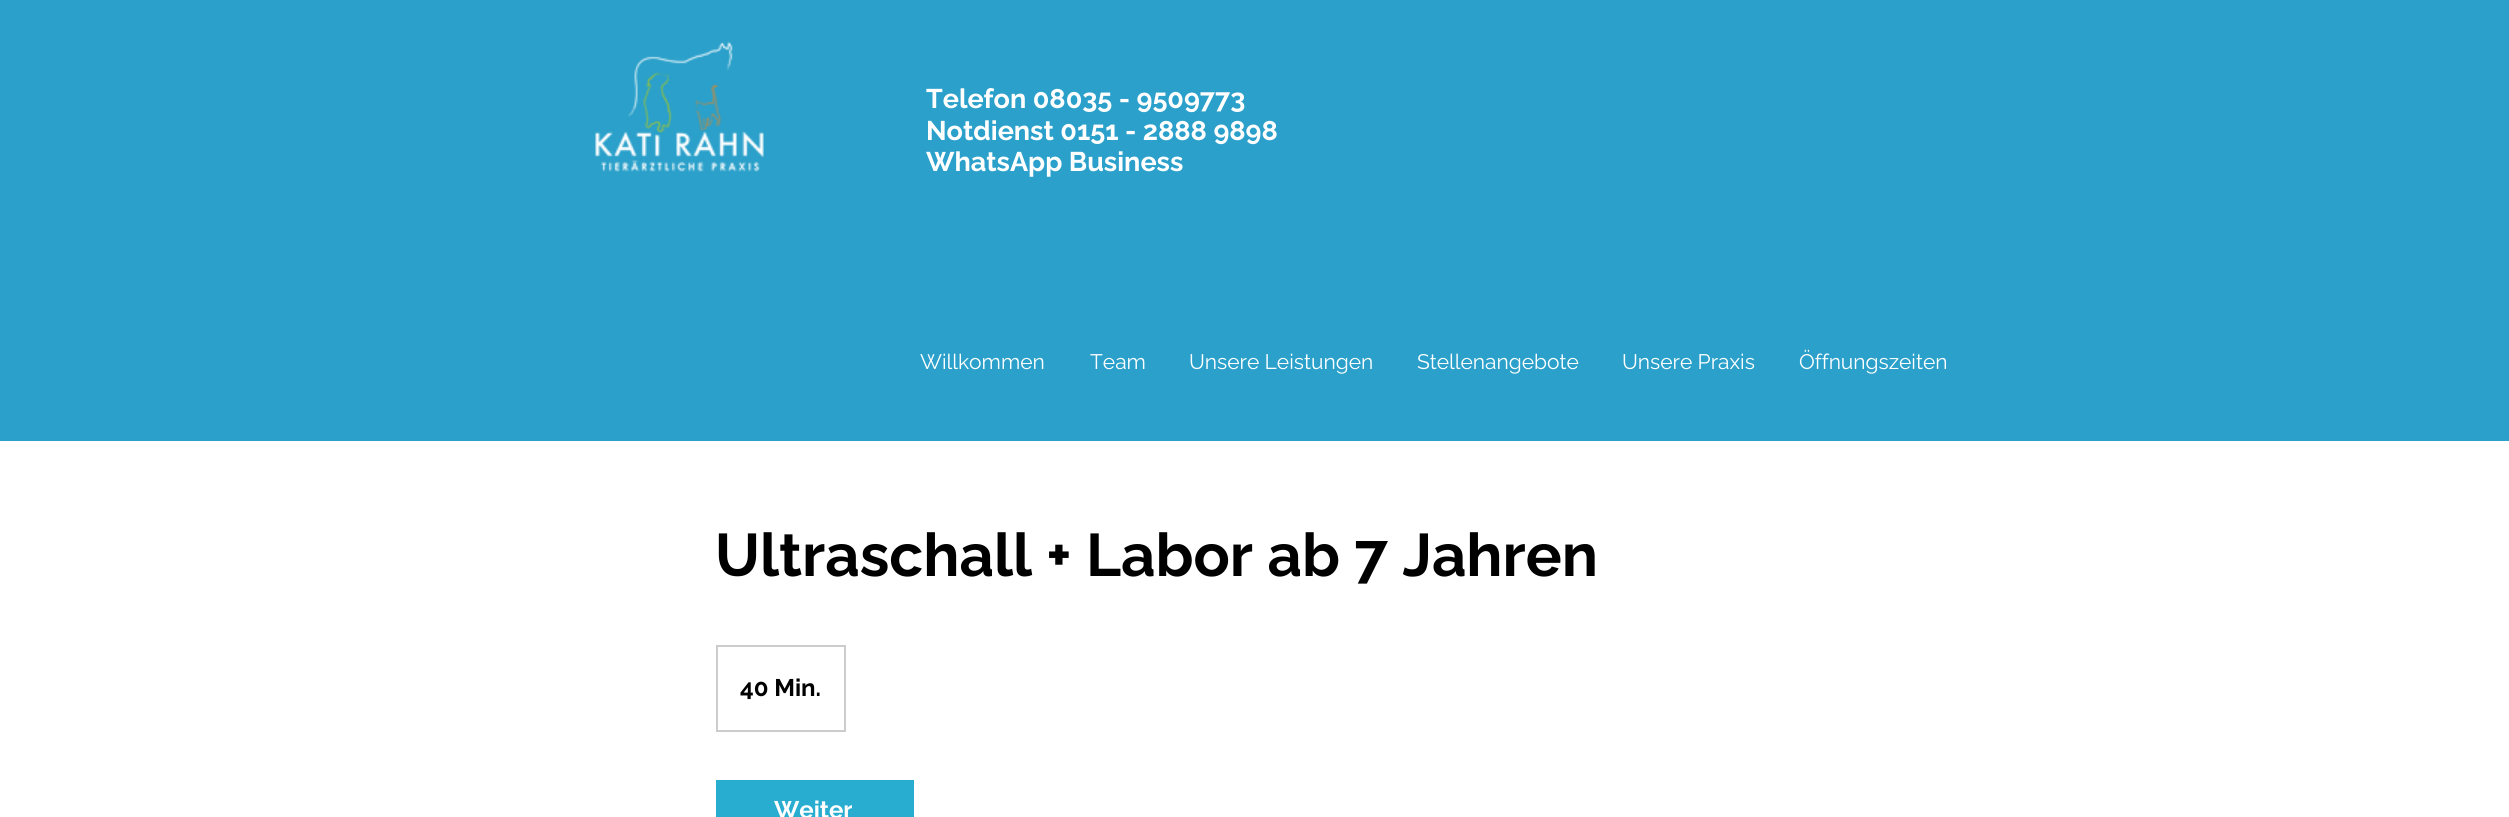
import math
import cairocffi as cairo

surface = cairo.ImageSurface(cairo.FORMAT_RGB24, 2509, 817)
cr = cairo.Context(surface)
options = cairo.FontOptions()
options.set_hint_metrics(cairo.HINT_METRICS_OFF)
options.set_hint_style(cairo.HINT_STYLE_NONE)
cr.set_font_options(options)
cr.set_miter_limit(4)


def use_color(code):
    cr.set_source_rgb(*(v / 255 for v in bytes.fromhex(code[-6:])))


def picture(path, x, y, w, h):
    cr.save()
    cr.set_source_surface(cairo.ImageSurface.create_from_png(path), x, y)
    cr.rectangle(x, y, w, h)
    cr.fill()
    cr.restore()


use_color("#ffffff")
cr.paint()
use_color("#2aa0ca")
cr.rectangle(0, 0, 2509, 441)
cr.fill()
picture("img1.png", 595, 41, 169, 131)
cr.select_font_face("Raleway", cairo.FONT_SLANT_NORMAL, cairo.FONT_WEIGHT_BOLD)
cr.set_font_size(27)
use_color("#ffffff")
cr.move_to(926, 108)
cr.show_text("Telefon 08035 - 9509773")
cr.move_to(926, 140)
cr.show_text("Notdienst 0151 - 2888 9898")
cr.move_to(926, 171)
cr.show_text("WhatsApp Business")
cr.select_font_face("Raleway")
cr.set_font_size(21)
cr.move_to(920, 369)
cr.show_text("Willkommen")
cr.move_to(1090, 369)
cr.show_text("Team")
cr.move_to(1189, 369)
cr.show_text("Unsere Leistungen")
cr.move_to(1417, 369)
cr.show_text("Stellenangebote")
cr.move_to(1622, 369)
cr.show_text("Unsere Praxis")
cr.move_to(1799, 369)
cr.show_text("Öffnungszeiten")
cr.select_font_face("Raleway", cairo.FONT_SLANT_NORMAL, cairo.FONT_WEIGHT_BOLD)
cr.set_font_size(60)
use_color("#000000")
cr.move_to(715, 576)
cr.show_text("Ultraschall + Labor ab 7 Jahren")
cr.rectangle(717, 646, 128, 85)
use_color("#cccccc")
cr.stroke()
cr.set_font_size(24)
use_color("#000000")
cr.move_to(740, 696)
cr.show_text("40 Min.")
use_color("#28add1")
cr.rectangle(716, 780, 198, 37)
cr.fill()
use_color("#ffffff")
cr.move_to(774, 818)
cr.show_text("Weiter")
surface.write_to_png("result.png")
